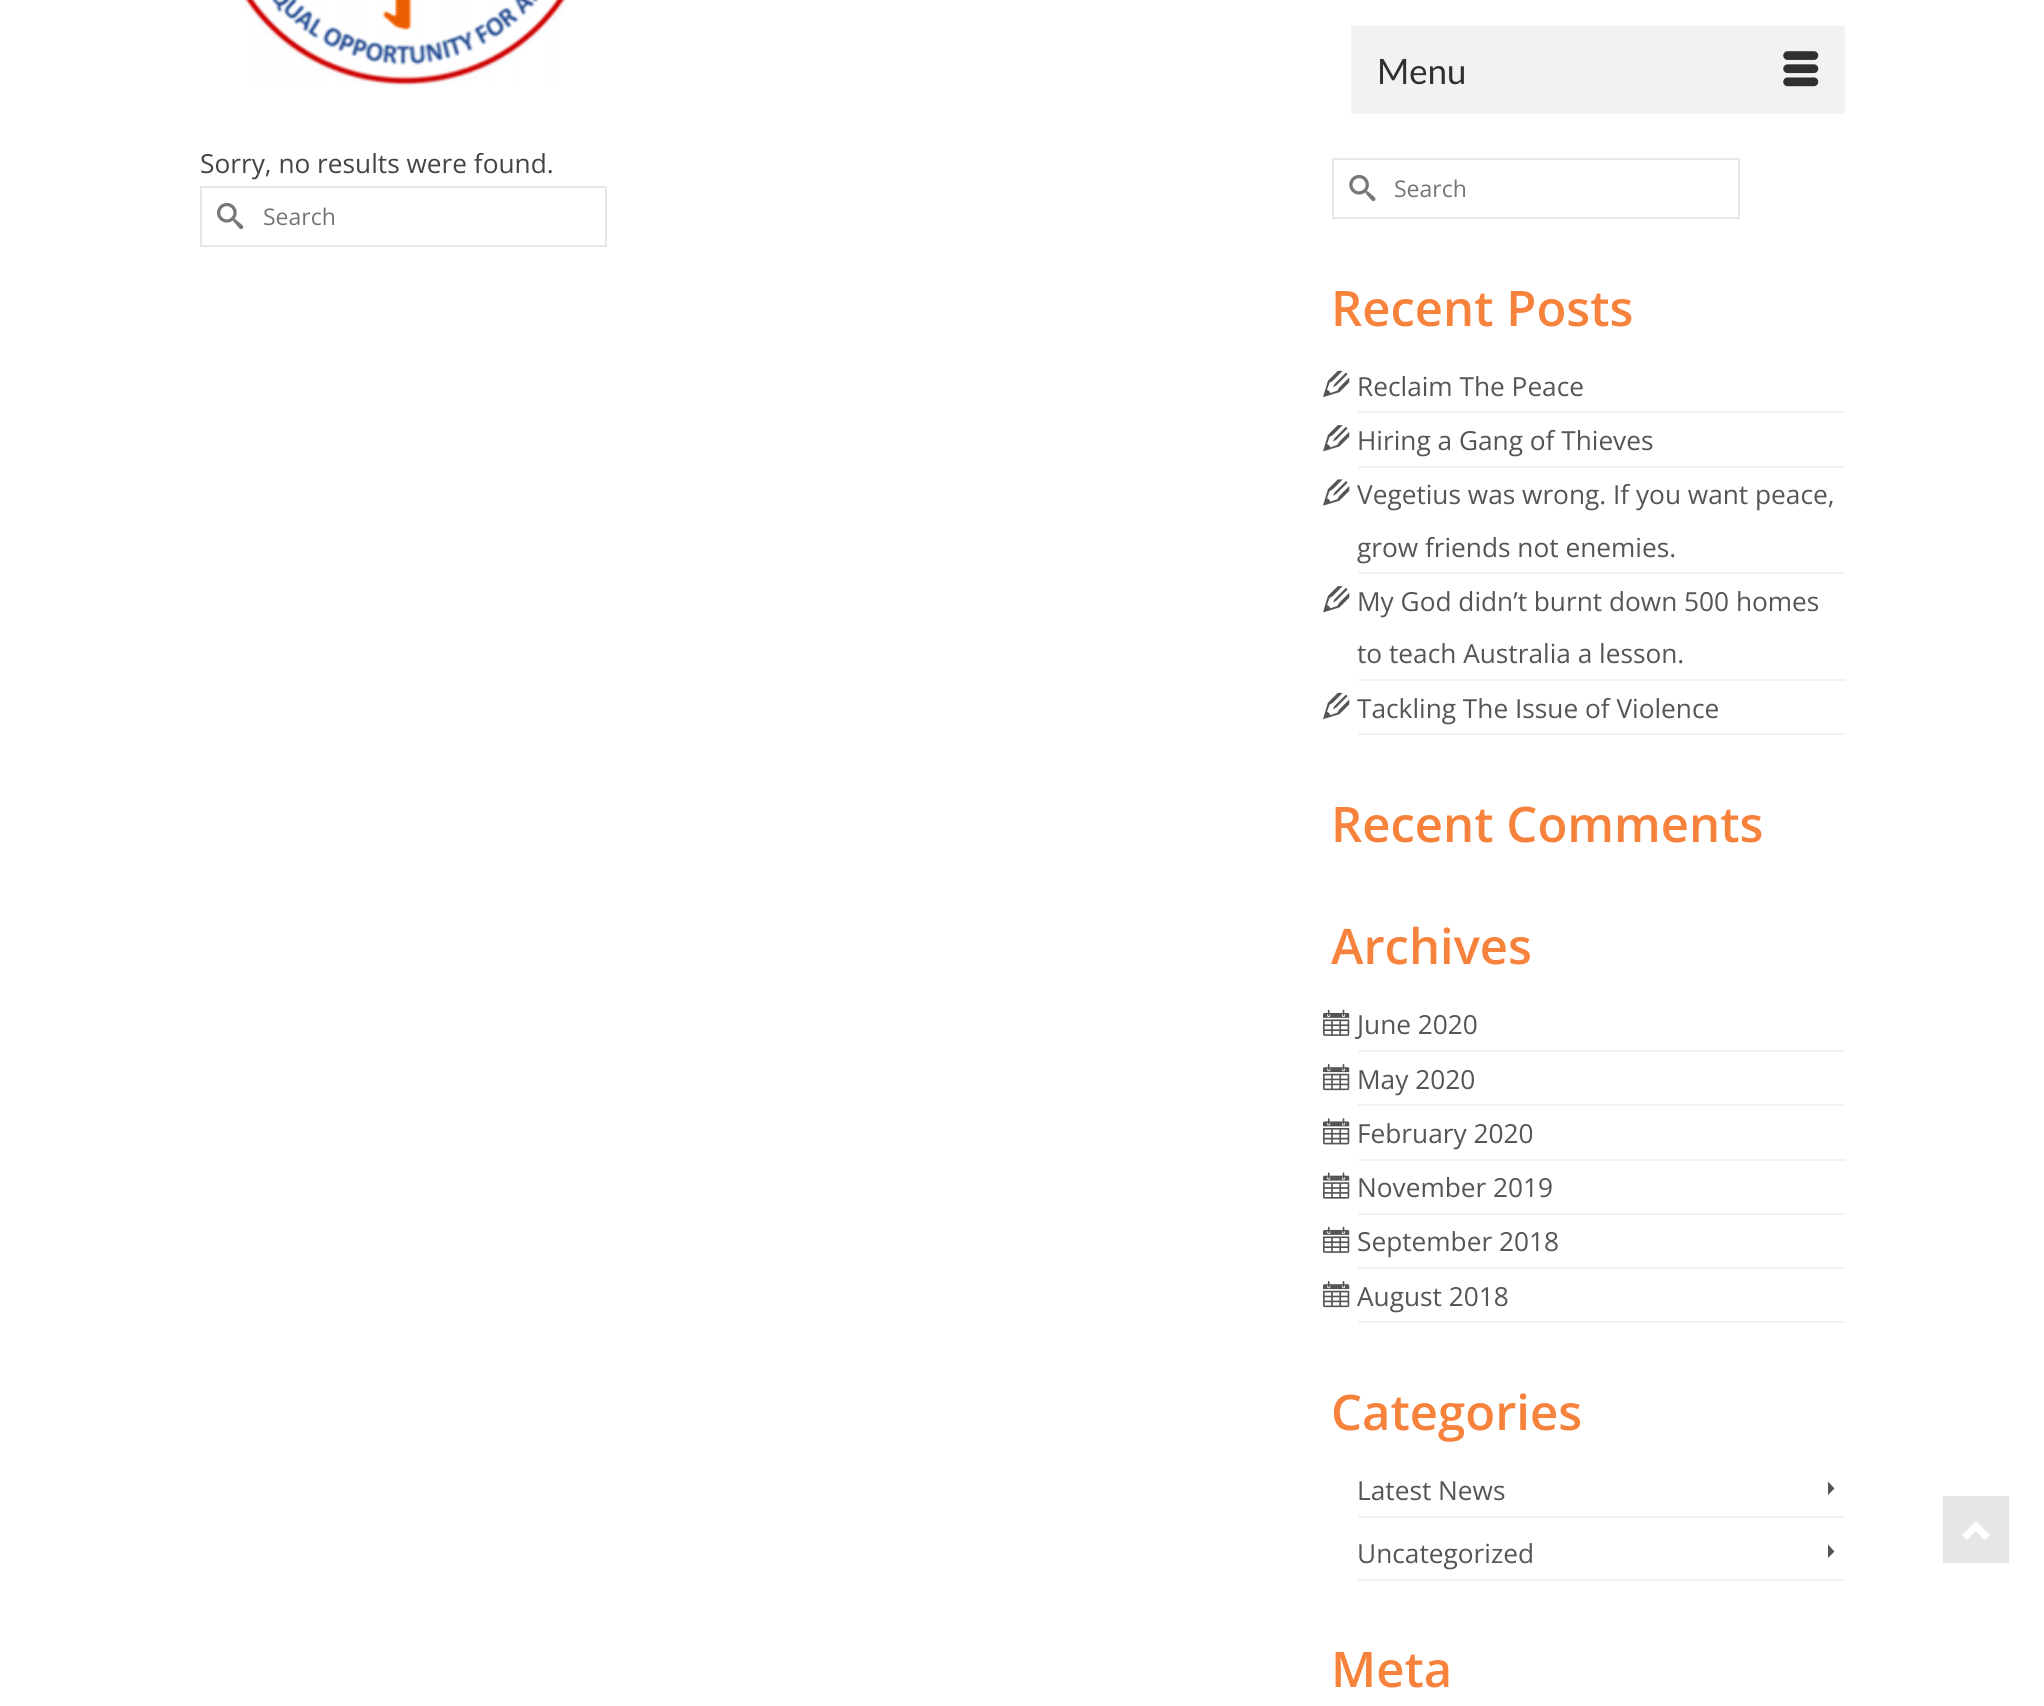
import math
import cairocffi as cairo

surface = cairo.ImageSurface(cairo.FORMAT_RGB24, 2044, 1706)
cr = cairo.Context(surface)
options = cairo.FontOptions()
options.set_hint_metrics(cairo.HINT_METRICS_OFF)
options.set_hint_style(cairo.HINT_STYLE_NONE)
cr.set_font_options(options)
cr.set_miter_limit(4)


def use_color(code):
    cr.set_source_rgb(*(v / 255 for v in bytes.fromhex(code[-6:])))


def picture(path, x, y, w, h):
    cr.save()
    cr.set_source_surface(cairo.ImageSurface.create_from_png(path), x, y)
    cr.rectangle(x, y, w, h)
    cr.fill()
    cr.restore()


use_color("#ffffff")
cr.paint()
picture("img1.png", 244, 0, 323, 87)
use_color("#f2f2f2")
cr.rectangle(1351, 26, 494, 88)
cr.fill()
cr.select_font_face("Lato")
cr.set_font_size(35)
use_color("#303030")
cr.move_to(1377, 84)
cr.show_text("Menu")
picture("img2.png", 1783, 51, 36, 36)
cr.select_font_face("Open Sans")
cr.set_font_size(26.25)
use_color("#444444")
cr.move_to(200, 173)
cr.show_text("Sorry, no results were found.")
cr.rectangle(201, 187, 405, 59)
use_color("#e7e7e7")
cr.stroke()
picture("img3.png", 217, 202, 27, 28)
cr.set_font_size(23)
use_color("#757575")
cr.move_to(263, 225)
cr.show_text("Search")
cr.rectangle(1333, 159, 406, 59)
use_color("#e7e7e7")
cr.stroke()
picture("img4.png", 1349, 174, 27, 28)
use_color("#757575")
cr.move_to(1394, 197)
cr.show_text("Search")
cr.select_font_face("Open Sans SemiBold")
cr.set_font_size(49)
use_color("#f7823c")
cr.move_to(1331, 326)
cr.show_text("Recent Posts")
use_color("#f2f2f2")
cr.rectangle(1358, 411, 487, 2)
cr.fill()
picture("img5.png", 1323, 370, 27, 28)
cr.select_font_face("Open Sans")
cr.set_font_size(26.25)
use_color("#555555")
cr.move_to(1357, 396)
cr.show_text("Reclaim The Peace")
use_color("#f2f2f2")
cr.rectangle(1358, 466, 487, 2)
cr.fill()
picture("img6.png", 1323, 425, 27, 27)
use_color("#555555")
cr.move_to(1357, 450)
cr.show_text("Hiring a Gang of Thieves")
use_color("#f2f2f2")
cr.rectangle(1358, 572, 487, 2)
cr.fill()
picture("img7.png", 1323, 479, 27, 27)
use_color("#555555")
cr.move_to(1357, 504)
cr.show_text("Vegetius was wrong. If you want peace,")
cr.move_to(1357, 557)
cr.show_text("grow friends not enemies.")
use_color("#f2f2f2")
cr.rectangle(1358, 679, 487, 2)
cr.fill()
picture("img6.png", 1323, 586, 27, 27)
use_color("#555555")
cr.move_to(1357, 611)
cr.show_text("My God didn’t burnt down 500 homes")
cr.move_to(1357, 663)
cr.show_text("to teach Australia a lesson.")
use_color("#f2f2f2")
cr.rectangle(1358, 733, 487, 2)
cr.fill()
picture("img5.png", 1323, 692, 27, 28)
use_color("#555555")
cr.move_to(1357, 718)
cr.show_text("Tackling The Issue of Violence")
cr.select_font_face("Open Sans SemiBold")
cr.set_font_size(49)
use_color("#f7823c")
cr.move_to(1331, 842)
cr.show_text("Recent Comments")
cr.move_to(1331, 964)
cr.show_text("Archives")
use_color("#f2f2f2")
cr.rectangle(1358, 1050, 487, 2)
cr.fill()
picture("img8.png", 1323, 1009, 27, 27)
cr.select_font_face("Open Sans")
cr.set_font_size(26.25)
use_color("#555555")
cr.move_to(1357, 1034)
cr.show_text("June 2020")
use_color("#f2f2f2")
cr.rectangle(1358, 1104, 487, 2)
cr.fill()
picture("img9.png", 1323, 1064, 27, 27)
use_color("#555555")
cr.move_to(1357, 1089)
cr.show_text("May 2020")
use_color("#f2f2f2")
cr.rectangle(1358, 1159, 487, 2)
cr.fill()
picture("img10.png", 1323, 1118, 27, 27)
use_color("#555555")
cr.move_to(1357, 1143)
cr.show_text("February 2020")
use_color("#f2f2f2")
cr.rectangle(1358, 1213, 487, 2)
cr.fill()
picture("img11.png", 1323, 1172, 27, 27)
use_color("#555555")
cr.move_to(1357, 1197)
cr.show_text("November 2019")
use_color("#f2f2f2")
cr.rectangle(1358, 1267, 487, 2)
cr.fill()
picture("img8.png", 1323, 1226, 27, 27)
use_color("#555555")
cr.move_to(1357, 1251)
cr.show_text("September 2018")
use_color("#f2f2f2")
cr.rectangle(1358, 1321, 487, 2)
cr.fill()
picture("img9.png", 1323, 1281, 27, 27)
use_color("#555555")
cr.move_to(1357, 1306)
cr.show_text("August 2018")
cr.select_font_face("Open Sans SemiBold")
cr.set_font_size(49)
use_color("#f7823c")
cr.move_to(1331, 1430)
cr.show_text("Categories")
use_color("#f2f2f2")
cr.rectangle(1358, 1516, 487, 2)
cr.fill()
cr.select_font_face("Open Sans")
cr.set_font_size(26.25)
use_color("#555555")
cr.move_to(1357, 1500)
cr.show_text("Latest News")
cr.new_path()
cr.move_to(1828, 1495)
cr.line_to(1834.5, 1488.5)
cr.line_to(1828, 1481.5)
cr.close_path()
cr.fill()
use_color("#f2f2f2")
cr.rectangle(1358, 1579, 487, 2)
cr.fill()
use_color("#555555")
cr.move_to(1357, 1563)
cr.show_text("Uncategorized")
cr.new_path()
cr.move_to(1828, 1558)
cr.line_to(1834.5, 1551.5)
cr.line_to(1828, 1544.5)
cr.close_path()
cr.fill()
cr.select_font_face("Open Sans SemiBold")
cr.set_font_size(49)
use_color("#f7823c")
cr.move_to(1331, 1687)
cr.show_text("Meta")
use_color("#e6e6e6")
cr.rectangle(1943, 1496, 66, 67)
cr.fill()
use_color("#ffffff")
cr.new_path()
cr.move_to(1962, 1535)
cr.line_to(1967, 1540)
cr.line_to(1976, 1531)
cr.line_to(1984.5, 1540)
cr.line_to(1990, 1535)
cr.line_to(1976, 1521)
cr.close_path()
cr.fill()
surface.write_to_png("result.png")
